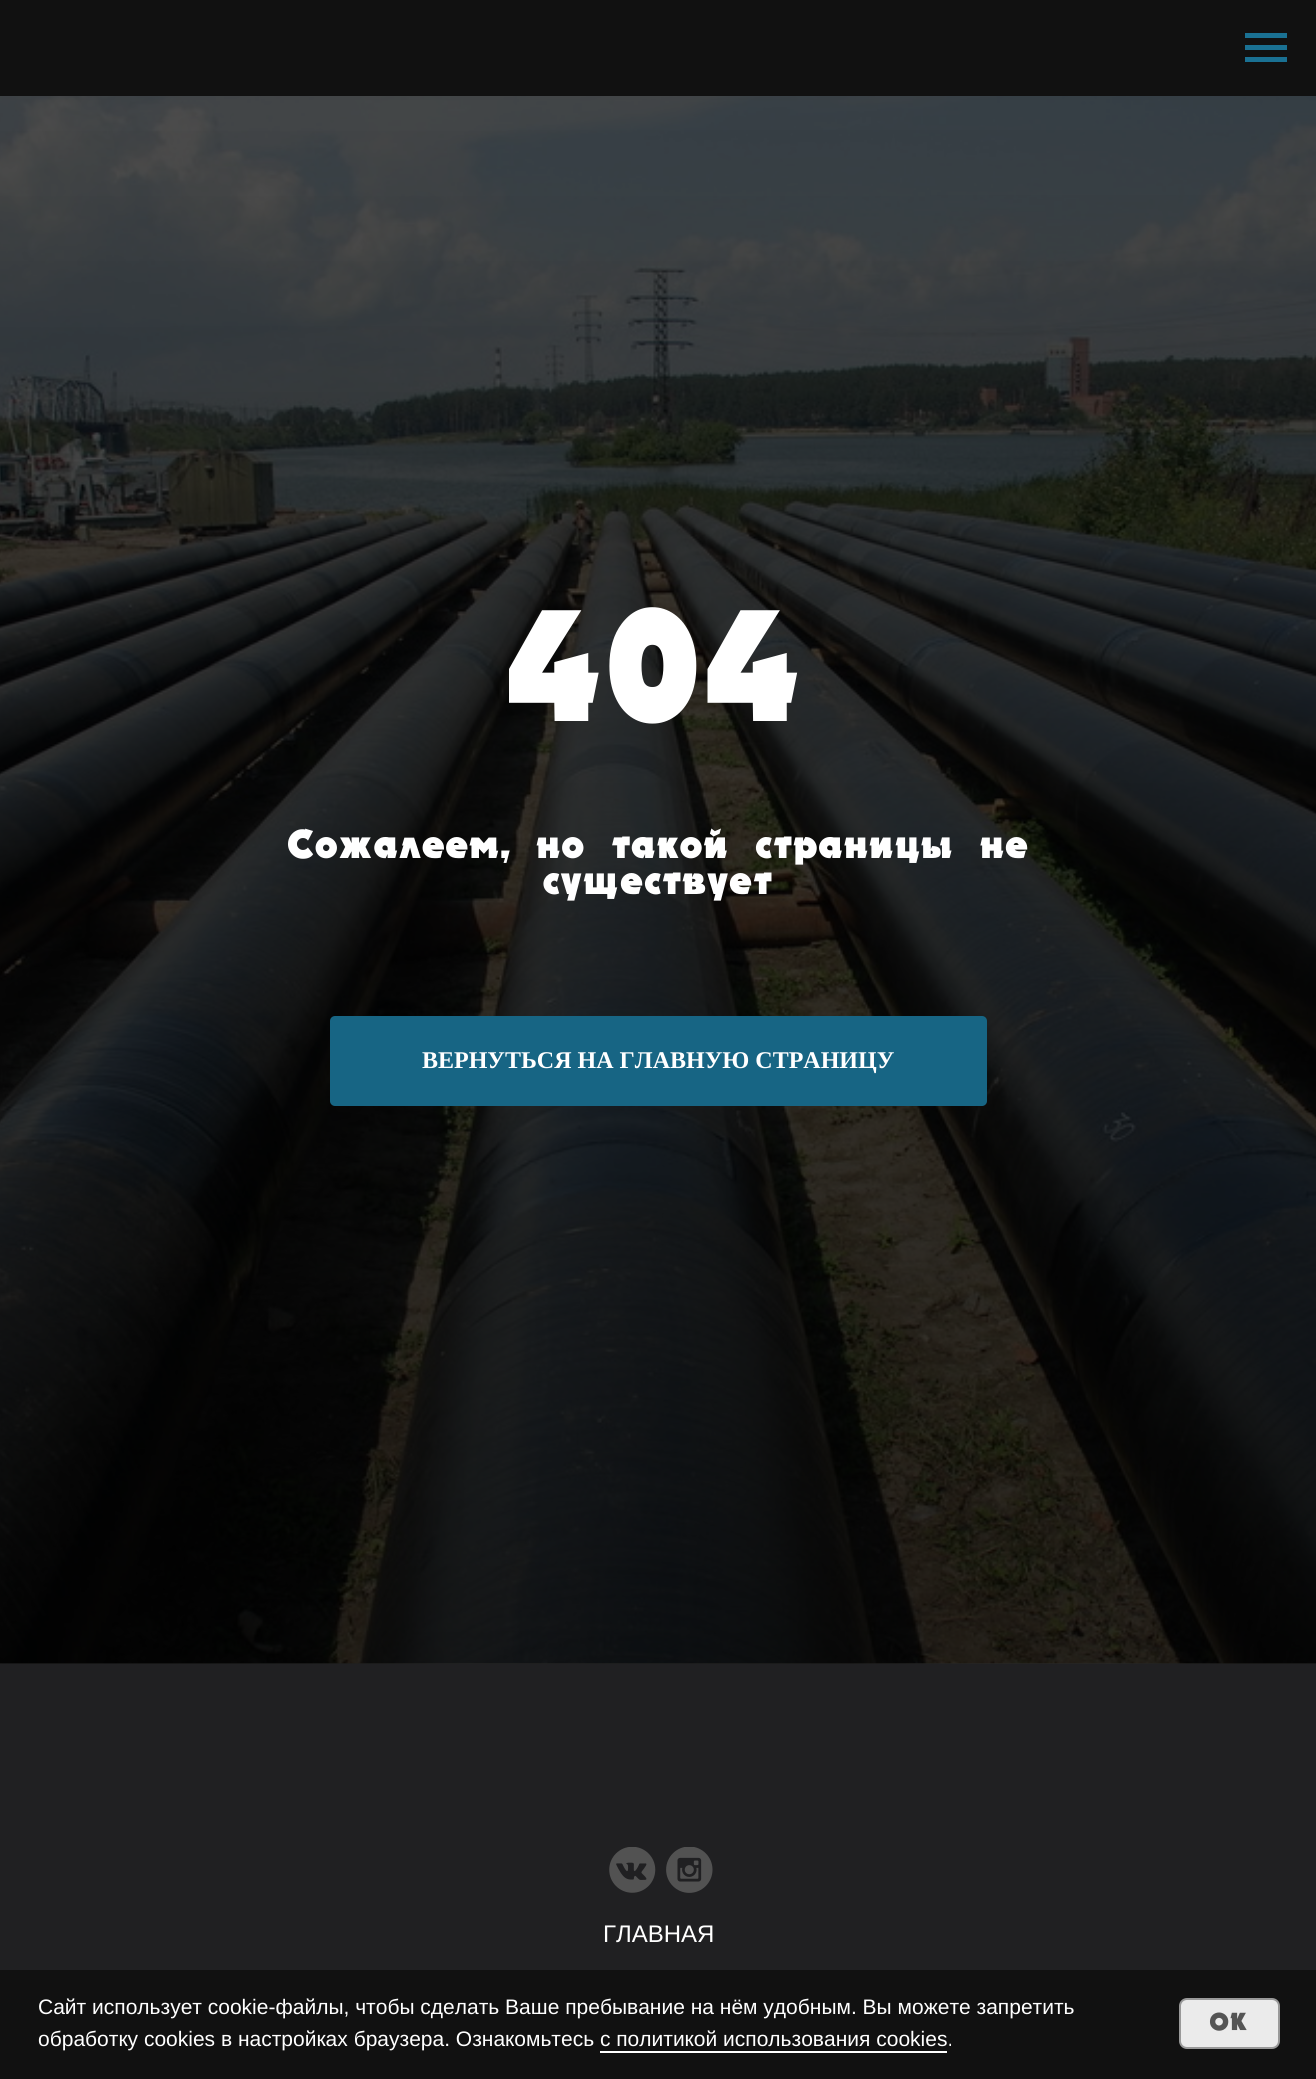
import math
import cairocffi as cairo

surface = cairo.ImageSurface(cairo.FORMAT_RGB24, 1316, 2079)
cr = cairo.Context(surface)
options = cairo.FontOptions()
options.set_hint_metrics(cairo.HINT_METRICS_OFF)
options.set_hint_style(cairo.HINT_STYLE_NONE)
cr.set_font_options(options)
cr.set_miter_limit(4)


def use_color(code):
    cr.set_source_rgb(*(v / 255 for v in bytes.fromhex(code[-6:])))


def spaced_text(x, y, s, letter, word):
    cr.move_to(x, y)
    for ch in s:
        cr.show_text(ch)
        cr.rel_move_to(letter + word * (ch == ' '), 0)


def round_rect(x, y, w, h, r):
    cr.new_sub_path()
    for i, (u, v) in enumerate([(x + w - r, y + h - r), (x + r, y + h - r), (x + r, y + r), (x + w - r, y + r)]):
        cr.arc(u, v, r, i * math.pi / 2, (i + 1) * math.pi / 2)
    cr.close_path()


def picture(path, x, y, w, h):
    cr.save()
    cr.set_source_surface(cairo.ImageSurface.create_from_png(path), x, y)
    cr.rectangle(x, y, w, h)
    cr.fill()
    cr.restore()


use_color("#ffffff")
cr.paint()
use_color("#111111")
cr.rectangle(0, 0, 1316, 96)
cr.fill()
use_color("#1a7193")
cr.rectangle(1245, 33, 42, 5)
cr.fill()
cr.rectangle(1245, 45, 42, 5)
cr.fill()
cr.rectangle(1245, 57, 42, 5)
cr.fill()
picture("img1.png", 0, 1663, 1316, 1)
picture("img2.png", 0, 96, 1316, 1568)
gradient = cairo.LinearGradient(658, 0, 659, 1664)
gradient.add_color_stop_rgba(0, 0, 0, 0, 0.7)
gradient.add_color_stop_rgba(1, 0, 0, 0, 0.8)
cr.set_source(gradient)
cr.rectangle(0, 96, 1316, 1568)
cr.fill()
cr.select_font_face("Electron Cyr", cairo.FONT_SLANT_NORMAL, cairo.FONT_WEIGHT_BOLD)
cr.set_font_size(153)
use_color("#ffffff")
spaced_text(509, 721, "404", 1.5, 0)
cr.set_font_size(39)
cr.move_to(288, 858)
cr.show_text("Сожалеем, но такой страницы не")
cr.move_to(543, 894)
cr.show_text("существует")
use_color("#176584")
round_rect(330, 1016, 657, 90, 5)
cr.fill()
cr.select_font_face("Liberation Serif", cairo.FONT_SLANT_NORMAL, cairo.FONT_WEIGHT_BOLD)
cr.set_font_size(24)
use_color("#ffffff")
cr.move_to(422, 1068)
cr.show_text("ВЕРНУТЬСЯ НА ГЛАВНУЮ СТРАНИЦУ")
use_color("#202022")
cr.rectangle(0, 1664, 1316, 306)
cr.fill()
picture("img3.png", 609, 1847, 47, 46)
picture("img4.png", 666, 1847, 47, 46)
cr.select_font_face("Liberation Sans")
use_color("#ffffff")
cr.move_to(603, 1942)
cr.show_text("ГЛАВНАЯ")
use_color("#111111")
cr.rectangle(0, 1970, 1316, 109)
cr.fill()
cr.set_font_size(21)
use_color("#ffffff")
cr.move_to(38, 2014)
cr.show_text("Сайт использует cookie-файлы, чтобы сделать Ваше пребывание на нём удобным. Вы можете запретить")
cr.move_to(38, 2046)
cr.show_text("обработку сookies в настройках браузера. Ознакомьтесь с политикой использования cookies.")
cr.rectangle(600, 2051, 347, 2)
cr.fill()
use_color("#ebebeb")
round_rect(1180, 1999, 99, 49, 7)
cr.fill_preserve()
use_color("#999999")
cr.stroke()
cr.select_font_face("Electron Cyr", cairo.FONT_SLANT_NORMAL, cairo.FONT_WEIGHT_BOLD)
cr.set_font_size(24)
use_color("#555555")
cr.move_to(1210, 2030)
cr.show_text("OK")
surface.write_to_png("result.png")
